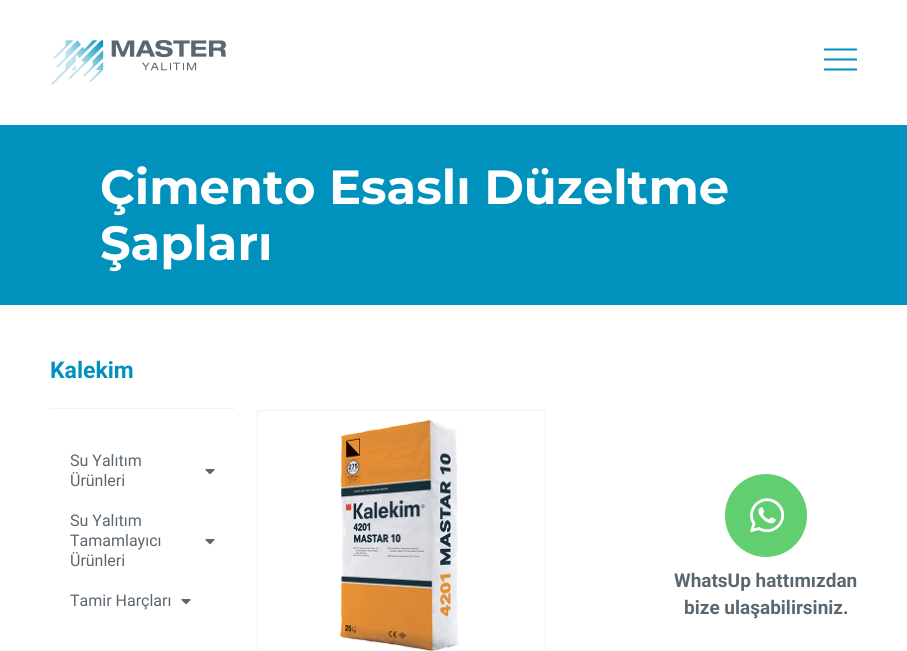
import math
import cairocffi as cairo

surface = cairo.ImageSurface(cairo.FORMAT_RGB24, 907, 651)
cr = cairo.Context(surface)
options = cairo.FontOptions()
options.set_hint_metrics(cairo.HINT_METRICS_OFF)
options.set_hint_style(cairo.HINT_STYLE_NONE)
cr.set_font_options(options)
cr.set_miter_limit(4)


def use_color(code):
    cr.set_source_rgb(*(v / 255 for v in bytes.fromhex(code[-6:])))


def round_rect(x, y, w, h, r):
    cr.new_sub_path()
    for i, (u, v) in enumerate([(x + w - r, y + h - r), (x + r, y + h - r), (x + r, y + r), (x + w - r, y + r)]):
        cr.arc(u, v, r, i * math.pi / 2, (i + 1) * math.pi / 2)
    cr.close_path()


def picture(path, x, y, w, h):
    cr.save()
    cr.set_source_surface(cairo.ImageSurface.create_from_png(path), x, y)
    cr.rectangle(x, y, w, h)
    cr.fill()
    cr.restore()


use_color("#ffffff")
cr.paint()
picture("img1.png", 50, 40, 176, 45)
use_color("#0092bc")
cr.new_path()
cr.move_to(824, 50.5)
cr.line_to(857, 50.5)
cr.line_to(857, 48.5)
cr.line_to(824, 48.5)
cr.close_path()
cr.move_to(857, 58.5)
cr.line_to(824, 58.5)
cr.line_to(824, 60.5)
cr.line_to(857, 60.5)
cr.close_path()
cr.move_to(824, 68.5)
cr.line_to(824, 70.5)
cr.line_to(857, 70.5)
cr.line_to(857, 68.5)
cr.close_path()
cr.fill()
cr.new_path()
cr.move_to(-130, 125)
cr.line_to(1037, 125)
cr.line_to(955, 305)
cr.line_to(-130, 305)
cr.close_path()
cr.fill()
cr.select_font_face("Montserrat", cairo.FONT_SLANT_NORMAL, cairo.FONT_WEIGHT_BOLD)
cr.set_font_size(48)
use_color("#ffffff")
cr.move_to(100, 204)
cr.show_text("Çimento Esaslı Düzeltme")
cr.move_to(100, 260)
cr.show_text("Şapları")
cr.select_font_face("Roboto", cairo.FONT_SLANT_NORMAL, cairo.FONT_WEIGHT_BOLD)
cr.set_font_size(23)
use_color("#0092bc")
cr.move_to(50, 378)
cr.show_text("Kalekim")
use_color("#f2f2f2")
cr.rectangle(50, 408, 185, 1)
cr.fill()
cr.select_font_face("Roboto")
cr.set_font_size(16)
use_color("#5b6770")
cr.move_to(70, 466)
cr.show_text("Su Yalıtım")
cr.move_to(70, 486)
cr.show_text("Ürünleri")
picture("img2.png", 205, 469, 10, 6)
cr.move_to(70, 526)
cr.show_text("Su Yalıtım")
cr.move_to(70, 546)
cr.show_text("Tamamlayıcı")
picture("img2.png", 205, 539, 10, 6)
cr.move_to(70, 566)
cr.show_text("Ürünleri")
cr.move_to(70, 606)
cr.show_text("Tamir Harçları")
picture("img2.png", 181, 599, 10, 6)
cr.rectangle(257.5, 410.5, 288, 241)
use_color("#f2f2f2")
cr.set_line_width(1)
cr.stroke()
picture("img3.png", 340, 419, 119, 232)
use_color("#61ce70")
round_rect(725, 474, 82, 83, 41)
cr.fill()
picture("img4.png", 750, 498, 35, 35)
cr.select_font_face("Roboto", cairo.FONT_SLANT_NORMAL, cairo.FONT_WEIGHT_BOLD)
cr.set_font_size(19)
use_color("#5b6770")
cr.move_to(674, 587)
cr.show_text("WhatsUp hattımızdan")
cr.move_to(684, 614)
cr.show_text("bize ulaşabilirsiniz.")
surface.write_to_png("result.png")
